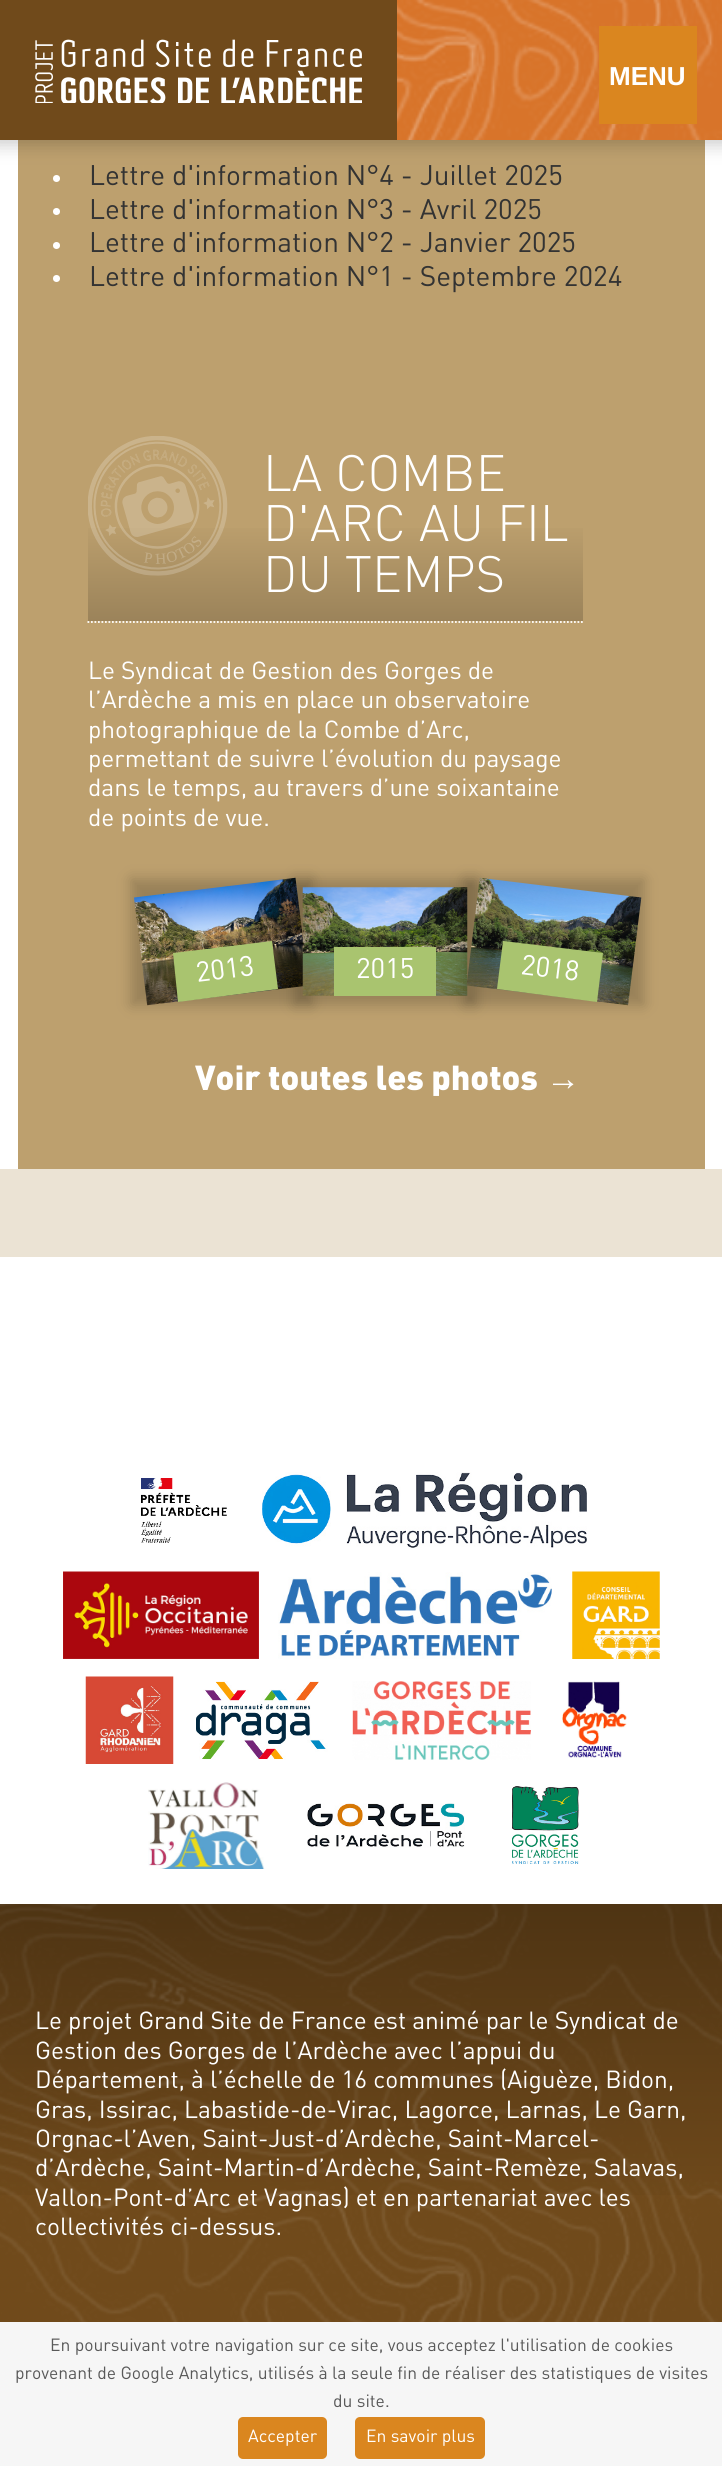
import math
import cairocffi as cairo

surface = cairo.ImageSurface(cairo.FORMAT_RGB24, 722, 2466)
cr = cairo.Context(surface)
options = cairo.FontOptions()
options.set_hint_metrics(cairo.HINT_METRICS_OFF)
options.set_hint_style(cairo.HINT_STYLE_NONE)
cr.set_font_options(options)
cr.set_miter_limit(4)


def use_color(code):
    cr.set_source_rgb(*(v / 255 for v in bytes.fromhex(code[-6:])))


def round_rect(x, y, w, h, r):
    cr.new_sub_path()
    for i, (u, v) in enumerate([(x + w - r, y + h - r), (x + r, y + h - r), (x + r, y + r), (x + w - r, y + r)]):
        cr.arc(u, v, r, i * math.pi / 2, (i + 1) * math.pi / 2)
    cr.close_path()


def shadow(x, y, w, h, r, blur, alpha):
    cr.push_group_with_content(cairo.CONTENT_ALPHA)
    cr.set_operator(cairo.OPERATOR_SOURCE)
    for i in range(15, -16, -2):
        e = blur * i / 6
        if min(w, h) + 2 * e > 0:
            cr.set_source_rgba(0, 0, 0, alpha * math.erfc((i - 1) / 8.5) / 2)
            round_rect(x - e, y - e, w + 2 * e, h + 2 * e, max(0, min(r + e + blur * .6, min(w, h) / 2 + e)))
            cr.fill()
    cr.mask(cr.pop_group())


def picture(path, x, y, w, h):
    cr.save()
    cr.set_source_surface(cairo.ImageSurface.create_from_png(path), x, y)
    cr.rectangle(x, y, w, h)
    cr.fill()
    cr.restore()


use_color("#ffffff")
cr.paint()
use_color("#bda06e")
cr.rectangle(18, 140, 687, 1029)
cr.fill()
use_color("#000000")
shadow(-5, -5, 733, 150, 0, 9, 0.2)
use_color("#d8742a")
cr.rectangle(397, 0, 325, 140)
cr.fill()
use_color("#704a1b")
cr.rectangle(0, 0, 397, 140)
cr.fill()
picture("img1.png", 35, 39, 327, 64)
picture("img2.png", 397, 0, 325, 140)
use_color("#da861f")
cr.rectangle(599, 26, 98, 98)
cr.fill()
cr.select_font_face("Liberation Sans", cairo.FONT_SLANT_NORMAL, cairo.FONT_WEIGHT_BOLD)
cr.set_font_size(26)
use_color("#ffffff")
cr.move_to(609, 85)
cr.show_text("MENU")
cr.new_path()
cr.arc(56.5, 178.5, 3.5, 0, 2 * math.pi)
cr.fill()
cr.select_font_face("DIN")
cr.set_font_size(28)
use_color("#333333")
cr.move_to(89, 185)
cr.show_text("Lettre d'information N°4 - Juillet 2025")
use_color("#ffffff")
cr.new_path()
cr.arc(56.5, 211.5, 3.5, 0, 2 * math.pi)
cr.fill()
use_color("#333333")
cr.move_to(89, 219)
cr.show_text("Lettre d'information N°3 - Avril 2025")
use_color("#ffffff")
cr.new_path()
cr.arc(56.5, 245.5, 3.5, 0, 2 * math.pi)
cr.fill()
use_color("#333333")
cr.move_to(89, 252)
cr.show_text("Lettre d'information N°2 - Janvier 2025")
use_color("#ffffff")
cr.new_path()
cr.arc(56.5, 278.5, 3.5, 0, 2 * math.pi)
cr.fill()
use_color("#333333")
cr.move_to(89, 286)
cr.show_text("Lettre d'information N°1 - Septembre 2024")
cr.new_path()
cr.move_to(87.5, 622)
cr.line_to(583, 622)
use_color("#ffffff")
cr.set_line_width(1.8)
cr.set_dash([1.75, 1.75])
cr.stroke()
gradient = cairo.LinearGradient(335, 621, 335, 453)
gradient.add_color_stop_rgba(0, 0.608, 0.514, 0.353, 1)
gradient.add_color_stop_rgba(0.6, 0.741, 0.627, 0.431, 1)
cr.set_source(gradient)
cr.rectangle(88, 528, 495, 93)
cr.fill()
picture("img3.png", 88, 436, 140, 140)
cr.select_font_face("DIN Light")
cr.set_font_size(50.5)
use_color("#ffffff")
cr.move_to(263, 491)
cr.show_text("LA COMBE")
cr.move_to(263, 541)
cr.show_text("D'ARC AU FIL")
cr.move_to(263, 592)
cr.show_text("DU TEMPS")
cr.select_font_face("DIN")
cr.set_font_size(24.5)
cr.move_to(88, 679)
cr.show_text("Le Syndicat de Gestion des Gorges de")
cr.move_to(88, 708)
cr.show_text("l’Ardèche a mis en place un observatoire")
cr.move_to(88, 738)
cr.show_text("photographique de la Combe d’Arc,")
cr.move_to(88, 767)
cr.show_text("permettant de suivre l’évolution du paysage")
cr.move_to(88, 796)
cr.show_text("dans le temps, au travers d’une soixantaine")
cr.move_to(88, 826)
cr.show_text("de points de vue.")
use_color("#000000")
shadow(131, 879, 181, 126, 0, 7, 0.2)
picture("img4.png", 134, 877, 169, 129)
use_color("#a9c46f")
cr.new_path()
cr.move_to(173, 953)
cr.line_to(272, 941)
cr.line_to(278, 989)
cr.line_to(178, 1002)
cr.close_path()
cr.fill()
cr.set_font_size(28)
use_color("#ffffff")
cr.save()
cr.translate(197, 982)
cr.rotate(-7 * math.pi / 180)
cr.move_to(0, 0)
cr.show_text("2013")
cr.restore()
use_color("#000000")
shadow(294, 879, 182, 126, 0, 7, 0.2)
picture("img5.png", 302, 887, 166, 109)
use_color("#a9c46f")
cr.rectangle(334, 947, 102, 49)
cr.fill()
use_color("#ffffff")
cr.move_to(356, 978)
cr.show_text("2015")
use_color("#000000")
shadow(464, 879, 180, 126, 0, 7, 0.2)
picture("img6.png", 466, 877, 176, 129)
use_color("#a9c46f")
cr.new_path()
cr.move_to(503, 941)
cr.line_to(603, 953)
cr.line_to(597, 1002)
cr.line_to(497, 989)
cr.close_path()
cr.fill()
use_color("#ffffff")
cr.save()
cr.translate(520, 974)
cr.rotate(7 * math.pi / 180)
cr.move_to(0, 0)
cr.show_text("2018")
cr.restore()
cr.select_font_face("DIN Black")
cr.set_font_size(34.25)
cr.move_to(195, 1090)
cr.show_text("Voir toutes les photos")
cr.select_font_face("Liberation Sans")
cr.move_to(546, 1090)
cr.show_text("→")
use_color("#ebe3d4")
cr.rectangle(0, 1169, 722, 88)
cr.fill()
picture("img7.png", 141, 1478, 86, 65)
picture("img8.png", 262, 1472, 325, 76)
picture("img9.png", 63, 1571, 196, 88)
picture("img10.png", 278, 1572, 274, 87)
picture("img11.png", 572, 1571, 88, 88)
picture("img12.png", 85, 1676, 89, 88)
picture("img13.png", 196, 1681, 132, 79)
picture("img14.png", 352, 1681, 179, 79)
picture("img15.png", 562, 1681, 65, 77)
picture("img16.png", 148, 1782, 117, 87)
picture("img17.png", 307, 1803, 158, 45)
picture("img18.png", 512, 1786, 67, 78)
use_color("#704a1b")
cr.rectangle(0, 1904, 722, 418)
cr.fill()
picture("img19.png", 0, 1904, 722, 418)
gradient = cairo.LinearGradient(361, 1904, 361, 2217)
gradient.add_color_stop_rgba(0, 0, 0, 0, 0.3)
gradient.add_color_stop_rgba(1, 0, 0, 0, 0)
cr.set_source(gradient)
cr.rectangle(0, 1904, 722, 291)
cr.fill()
cr.select_font_face("DIN")
cr.set_font_size(24.5)
use_color("#ffffff")
cr.move_to(35, 2029)
cr.show_text("Le projet Grand Site de France est animé par le Syndicat de")
cr.move_to(35, 2059)
cr.show_text("Gestion des Gorges de l’Ardèche avec l’appui du")
cr.move_to(35, 2088)
cr.show_text("Département, à l’échelle de 16 communes (Aiguèze, Bidon,")
cr.move_to(35, 2118)
cr.show_text("Gras, Issirac, Labastide-de-Virac, Lagorce, Larnas, Le Garn,")
cr.move_to(35, 2147)
cr.show_text("Orgnac-l’Aven, Saint-Just-d’Ardèche, Saint-Marcel-")
cr.move_to(35, 2176)
cr.show_text("d’Ardèche, Saint-Martin-d’Ardèche, Saint-Remèze, Salavas,")
cr.move_to(35, 2206)
cr.show_text("Vallon-Pont-d’Arc et Vagnas) et en partenariat avec les")
cr.move_to(35, 2235)
cr.show_text("collectivités ci-dessus.")
use_color("#f6f6f6")
cr.rectangle(0, 2322, 722, 144)
cr.fill()
cr.set_font_size(17.5)
use_color("#595959")
cr.move_to(50, 2351)
cr.show_text("En poursuivant votre navigation sur ce site, vous acceptez l'utilisation de cookies")
cr.move_to(15, 2379)
cr.show_text("provenant de Google Analytics, utilisés à la seule fin de réaliser des statistiques de visites")
cr.move_to(333, 2407)
cr.show_text("du site.")
use_color("#da861f")
round_rect(238, 2417, 89, 42, 5)
cr.fill()
use_color("#ffffff")
cr.move_to(248, 2442)
cr.show_text("Accepter")
use_color("#da861f")
round_rect(355, 2417, 130, 42, 5)
cr.fill()
use_color("#ffffff")
cr.move_to(366, 2442)
cr.show_text("En savoir plus")
surface.write_to_png("result.png")
